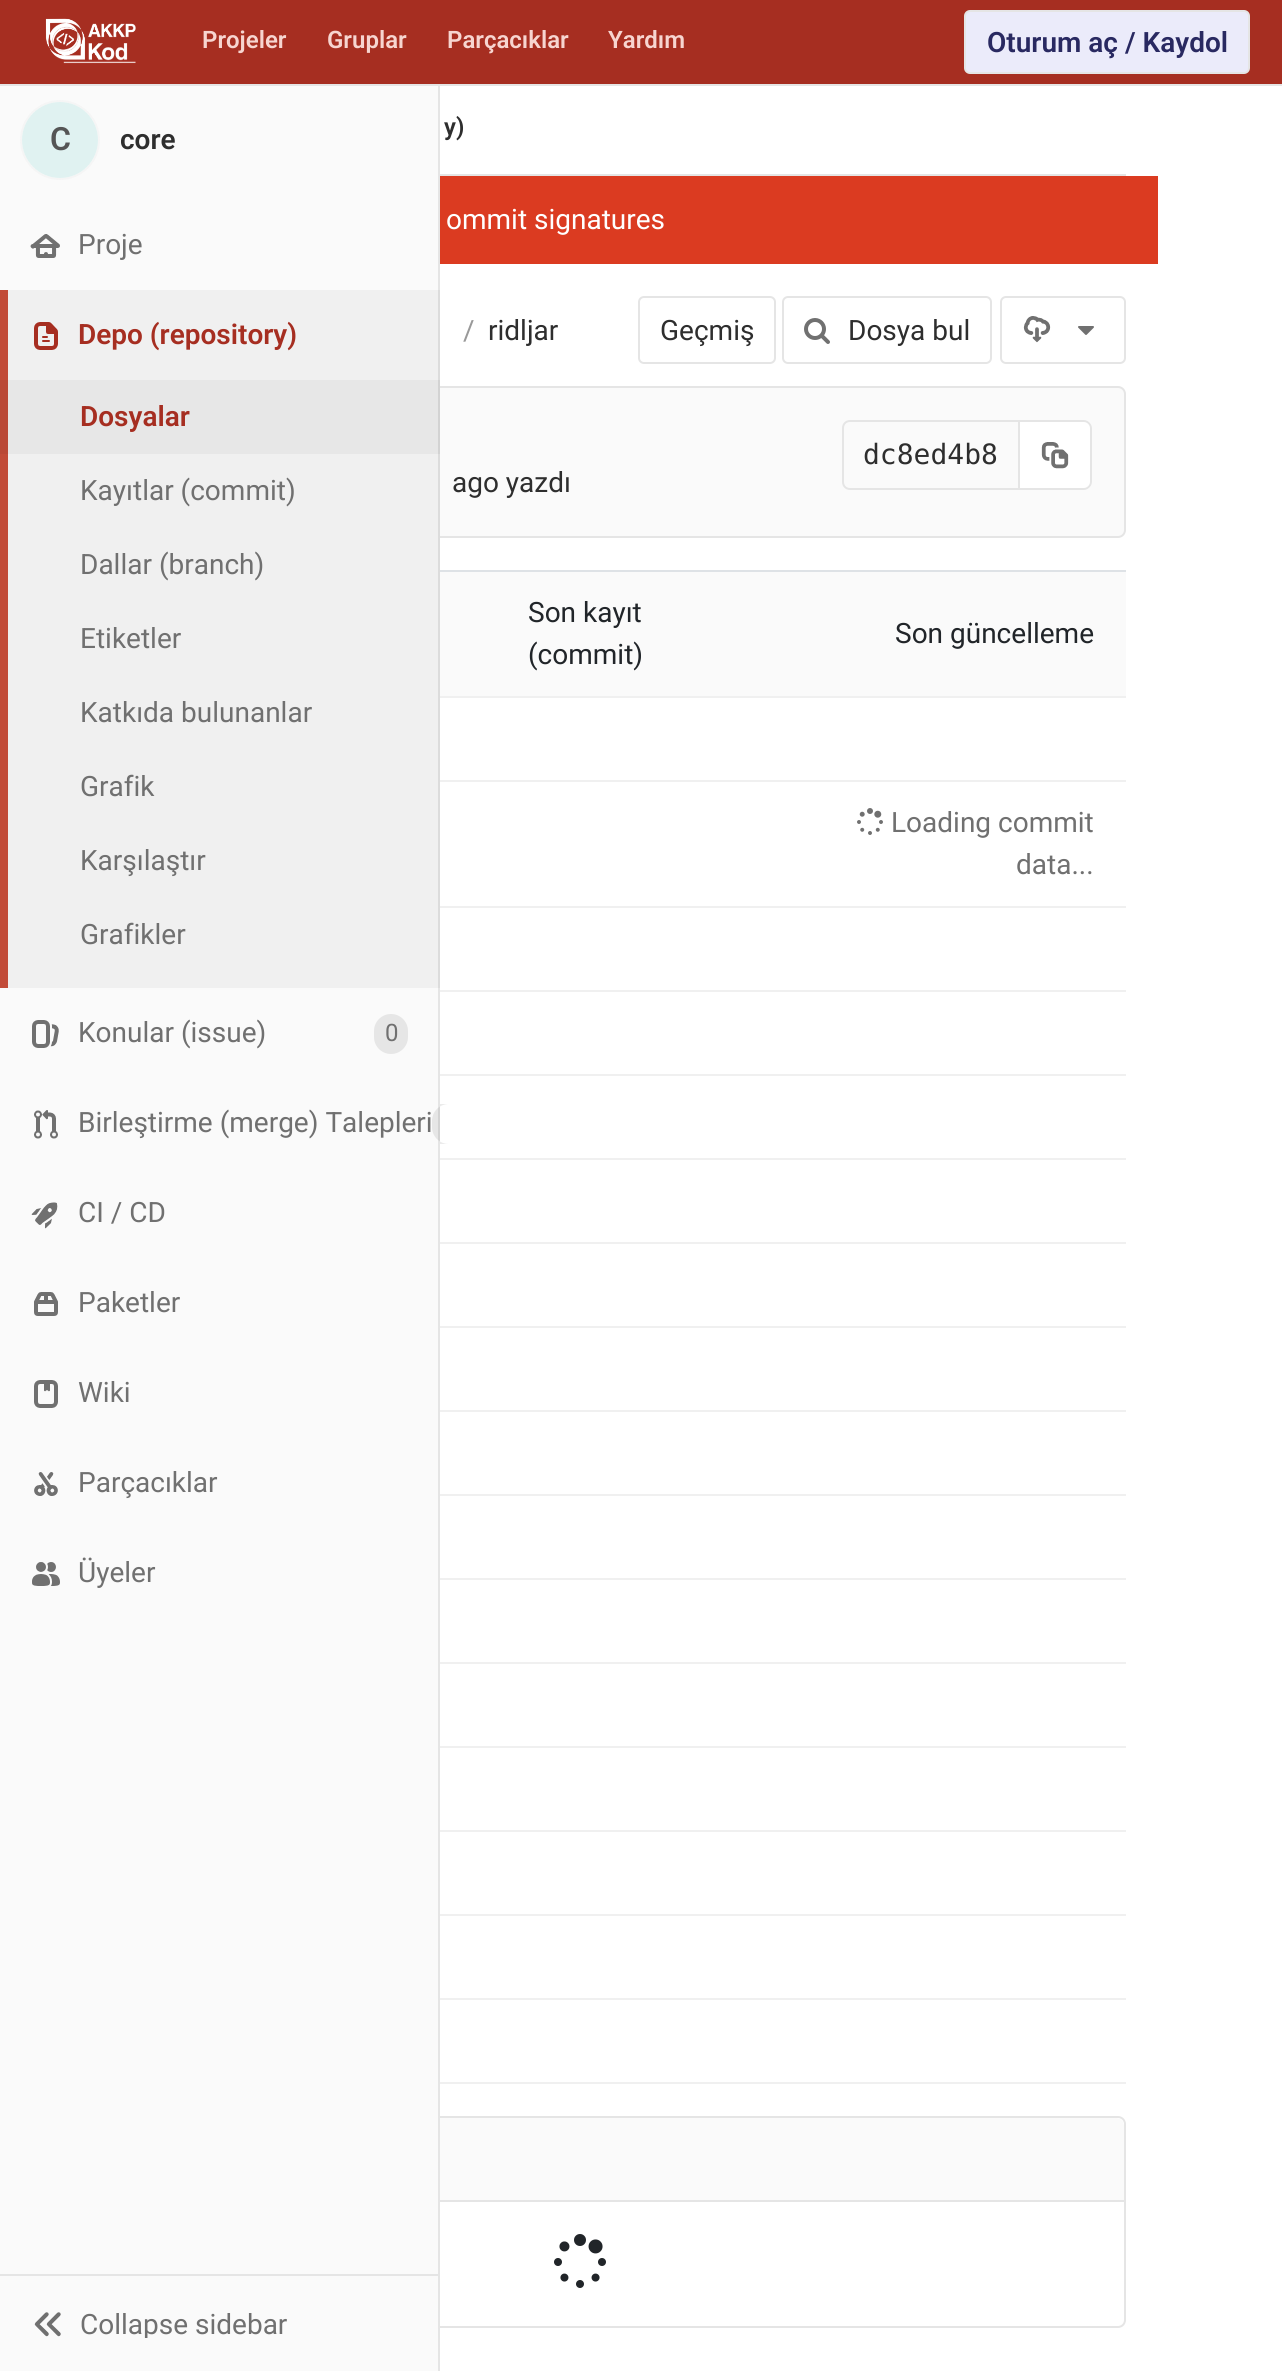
import math
import cairocffi as cairo

surface = cairo.ImageSurface(cairo.FORMAT_RGB24, 1282, 2371)
cr = cairo.Context(surface)
options = cairo.FontOptions()
options.set_hint_metrics(cairo.HINT_METRICS_OFF)
options.set_hint_style(cairo.HINT_STYLE_NONE)
cr.set_font_options(options)
cr.set_miter_limit(4)


def use_color(code):
    cr.set_source_rgb(*(v / 255 for v in bytes.fromhex(code[-6:])))


def round_rect(x, y, w, h, r):
    cr.new_sub_path()
    for i, (u, v) in enumerate([(x + w - r, y + h - r), (x + r, y + h - r), (x + r, y + r), (x + w - r, y + r)]):
        cr.arc(u, v, r, i * math.pi / 2, (i + 1) * math.pi / 2)
    cr.close_path()


def picture(path, x, y, w, h):
    cr.save()
    cr.set_source_surface(cairo.ImageSurface.create_from_png(path), x, y)
    cr.rectangle(x, y, w, h)
    cr.fill()
    cr.restore()


use_color("#ffffff")
cr.paint()
use_color("#fafafa")
round_rect(33, 387, 1092, 150, 7)
cr.fill_preserve()
use_color("#e5e5e5")
cr.stroke()
round_rect(33, 2117, 1092, 210, 7)
cr.stroke()
use_color("#fafafa")
cr.new_path()
cr.move_to(42, 2118)
cr.line_to(1116, 2118)
cr.curve_to(1120.5, 2118, 1124, 2121.5, 1124, 2126)
cr.line_to(1124, 2202)
cr.line_to(34, 2202)
cr.line_to(34, 2126)
cr.curve_to(34, 2121.5, 37.5, 2118, 42, 2118)
cr.close_path()
cr.fill()
use_color("#e5e5e5")
cr.rectangle(438, 80, 2, 2291)
cr.fill()
use_color("#a62e21")
cr.rectangle(0, 0, 1282, 84)
cr.fill()
use_color("#e5e5e5")
cr.rectangle(0, 84, 1282, 2)
cr.fill()
picture("img1.png", 45, 18, 91, 46)
cr.select_font_face("Roboto SemiBold")
cr.set_font_size(24)
use_color("#f7d5d0")
cr.move_to(202, 48)
cr.show_text("Projeler")
cr.move_to(327, 48)
cr.show_text("Gruplar")
cr.move_to(447, 48)
cr.show_text("Parçacıklar")
cr.move_to(608, 48)
cr.show_text("Yardım")
use_color("#ebebfa")
round_rect(965, 11, 284, 62, 5)
cr.fill_preserve()
use_color("#e5e5e5")
cr.stroke()
cr.set_font_size(28)
use_color("#292961")
cr.move_to(987, 52)
cr.show_text("Oturum aç / Kaydol")
use_color("#fafafa")
cr.rectangle(0, 86, 438, 2285)
cr.fill()
cr.arc(60, 140, 39, 0, 2 * math.pi)
use_color("#f5f5f5")
cr.stroke()
use_color("#e0f2f1")
cr.arc(60, 140, 38, 0, 2 * math.pi)
cr.fill()
cr.set_font_size(32)
use_color("#555555")
cr.move_to(50, 150)
cr.show_text("C")
cr.set_font_size(28)
use_color("#2e2e2e")
cr.move_to(120, 149)
cr.show_text("core")
picture("img2.png", 30, 234, 30, 24)
cr.select_font_face("Roboto")
use_color("#707070")
cr.move_to(78, 254)
cr.show_text("Proje")
cr.set_source_rgba(0, 0, 0, 0.04)
cr.rectangle(8, 290, 432, 698)
cr.fill()
use_color("#c24b38")
cr.rectangle(0, 290, 8, 698)
cr.fill()
picture("img3.png", 34, 322, 24, 28)
cr.select_font_face("Roboto SemiBold")
use_color("#a62e21")
cr.move_to(78, 344)
cr.show_text("Depo (repository)")
cr.set_source_rgba(0, 0, 0, 0.04)
cr.rectangle(0, 380, 440, 74)
cr.fill()
use_color("#a62e21")
cr.move_to(80, 426)
cr.show_text("Dosyalar")
cr.select_font_face("Roboto")
use_color("#707070")
cr.move_to(80, 500)
cr.show_text("Kayıtlar (commit)")
cr.move_to(80, 574)
cr.show_text("Dallar (branch)")
cr.move_to(80, 648)
cr.show_text("Etiketler")
cr.move_to(80, 722)
cr.show_text("Katkıda bulunanlar")
cr.move_to(80, 796)
cr.show_text("Grafik")
cr.move_to(80, 870)
cr.show_text("Karşılaştır")
cr.move_to(80, 944)
cr.show_text("Grafikler")
picture("img4.png", 32, 1020, 27, 28)
cr.move_to(78, 1042)
cr.show_text("Konular (issue)")
use_color("#e6e6e6")
round_rect(374, 1014, 34, 40, 17)
cr.fill()
cr.set_font_size(24)
use_color("#707070")
cr.move_to(385, 1041)
cr.show_text("0")
picture("img5.png", 34, 1110, 24, 29)
cr.set_font_size(28)
cr.move_to(78, 1132)
cr.show_text("Birleştirme (merge) Talepleri")
cr.set_source_rgba(0, 0, 0, 0.08)
cr.new_path()
cr.move_to(449, 1104)
cr.line_to(440, 1104)
cr.line_to(440, 1144)
cr.line_to(449, 1144)
cr.curve_to(439.5, 1144, 432, 1136.5, 432, 1127)
cr.line_to(432, 1121)
cr.curve_to(432, 1111.5, 439.5, 1104, 449, 1104)
cr.close_path()
cr.fill()
picture("img6.png", 31, 1202, 27, 27)
use_color("#707070")
cr.move_to(78, 1222)
cr.show_text("CI / CD")
picture("img7.png", 34, 1292, 24, 24)
cr.move_to(78, 1312)
cr.show_text("Paketler")
picture("img8.png", 34, 1380, 24, 28)
cr.move_to(78, 1402)
cr.show_text("Wiki")
picture("img9.png", 34, 1472, 24, 24)
cr.move_to(78, 1492)
cr.show_text("Parçacıklar")
picture("img10.png", 32, 1562, 28, 24)
cr.move_to(78, 1582)
cr.show_text("Üyeler")
use_color("#e5e5e5")
cr.rectangle(0, 2274, 438, 2)
cr.fill()
picture("img11.png", 34, 2312, 27, 25)
cr.save()
cr.rectangle(80, 2310, 208, 28)
cr.clip()
use_color("#707070")
cr.move_to(80, 2334)
cr.show_text("Collapse sidebar")
cr.restore()
cr.rectangle(440, 174, 686, 2)
cr.fill()
cr.select_font_face("Roboto SemiBold")
cr.set_font_size(24)
use_color("#2e2e2e")
cr.move_to(444, 135)
cr.show_text("y)")
use_color("#db3b21")
cr.rectangle(440, 176, 718, 88)
cr.fill()
cr.select_font_face("Roboto")
cr.set_font_size(28)
use_color("#ffffff")
cr.move_to(446, 229)
cr.show_text("ommit signatures")
use_color("#999999")
cr.move_to(463, 340)
cr.show_text("/")
use_color("#2e2e2e")
cr.move_to(488, 340)
cr.show_text("ridljar")
round_rect(639, 297, 136, 66, 5)
use_color("#e5e5e5")
cr.stroke()
use_color("#2e2e2e")
cr.move_to(660, 340)
cr.show_text("Geçmiş")
round_rect(783, 297, 208, 66, 5)
use_color("#e5e5e5")
cr.stroke()
picture("img12.png", 804, 318, 26, 26)
use_color("#2e2e2e")
cr.move_to(848, 340)
cr.show_text("Dosya bul")
round_rect(1001, 297, 124, 66, 5)
use_color("#e5e5e5")
cr.stroke()
picture("img13.png", 1023, 316, 28, 27)
picture("img14.png", 1078, 326, 16, 9)
cr.new_path()
cr.move_to(850, 421)
cr.line_to(1019, 421)
cr.line_to(1019, 489)
cr.line_to(850, 489)
cr.curve_to(846, 489, 843, 486, 843, 482)
cr.line_to(843, 428)
cr.curve_to(843, 424, 846, 421, 850, 421)
cr.close_path()
cr.stroke()
cr.select_font_face("DejaVu Sans Mono")
use_color("#2e2e2e")
cr.move_to(863, 464)
cr.show_text("dc8ed4b8")
use_color("#ffffff")
cr.new_path()
cr.move_to(1020, 420)
cr.line_to(1084, 420)
cr.curve_to(1088.5, 420, 1092, 423.5, 1092, 428)
cr.line_to(1092, 482)
cr.curve_to(1092, 486.5, 1088.5, 490, 1084, 490)
cr.line_to(1020, 490)
cr.close_path()
cr.fill()
use_color("#e5e5e5")
cr.set_fill_rule(cairo.FILL_RULE_EVEN_ODD)
cr.new_path()
cr.move_to(1020, 420)
cr.line_to(1084, 420)
cr.curve_to(1088, 420, 1092, 424, 1092, 428)
cr.line_to(1092, 482)
cr.curve_to(1092, 486, 1088, 490, 1084, 490)
cr.line_to(1020, 490)
cr.close_path()
cr.move_to(1020, 422)
cr.line_to(1084, 422)
cr.curve_to(1087, 422, 1090, 425, 1090, 428)
cr.line_to(1090, 482)
cr.curve_to(1090, 485, 1087, 488, 1084, 488)
cr.line_to(1020, 488)
cr.close_path()
cr.fill()
picture("img15.png", 1041, 442, 28, 27)
cr.select_font_face("Roboto")
use_color("#2e2e2e")
cr.move_to(452, 492)
cr.show_text("ago yazdı")
use_color("#fafafa")
cr.rectangle(440, 572, 686, 124)
cr.fill()
use_color("#212529")
cr.move_to(528, 622)
cr.show_text("Son kayıt")
cr.move_to(528, 664)
cr.show_text("(commit)")
use_color("#dee2e6")
cr.rectangle(440, 570, 686, 2)
cr.fill()
use_color("#212529")
cr.move_to(895, 643)
cr.show_text("Son güncelleme")
use_color("#f0f0f0")
cr.rectangle(440, 696, 686, 2)
cr.fill()
cr.rectangle(440, 780, 686, 2)
cr.fill()
picture("img16.png", 857, 808, 26, 27)
use_color("#707070")
cr.move_to(891, 832)
cr.show_text("Loading commit")
cr.move_to(1016, 874)
cr.show_text("data...")
use_color("#f0f0f0")
cr.rectangle(440, 906, 686, 2)
cr.fill()
cr.rectangle(440, 990, 686, 2)
cr.fill()
cr.rectangle(440, 1074, 686, 2)
cr.fill()
cr.rectangle(440, 1158, 686, 2)
cr.fill()
cr.rectangle(440, 1242, 686, 2)
cr.fill()
cr.rectangle(440, 1326, 686, 2)
cr.fill()
cr.rectangle(440, 1410, 686, 2)
cr.fill()
cr.rectangle(440, 1494, 686, 2)
cr.fill()
cr.rectangle(440, 1578, 686, 2)
cr.fill()
cr.rectangle(440, 1662, 686, 2)
cr.fill()
cr.rectangle(440, 1746, 686, 2)
cr.fill()
cr.rectangle(440, 1830, 686, 2)
cr.fill()
cr.rectangle(440, 1914, 686, 2)
cr.fill()
cr.rectangle(440, 1998, 686, 2)
cr.fill()
cr.rectangle(440, 2082, 686, 2)
cr.fill()
use_color("#e5e5e5")
cr.rectangle(440, 2200, 684, 2)
cr.fill()
picture("img17.png", 554, 2234, 52, 54)
surface.write_to_png("result.png")
